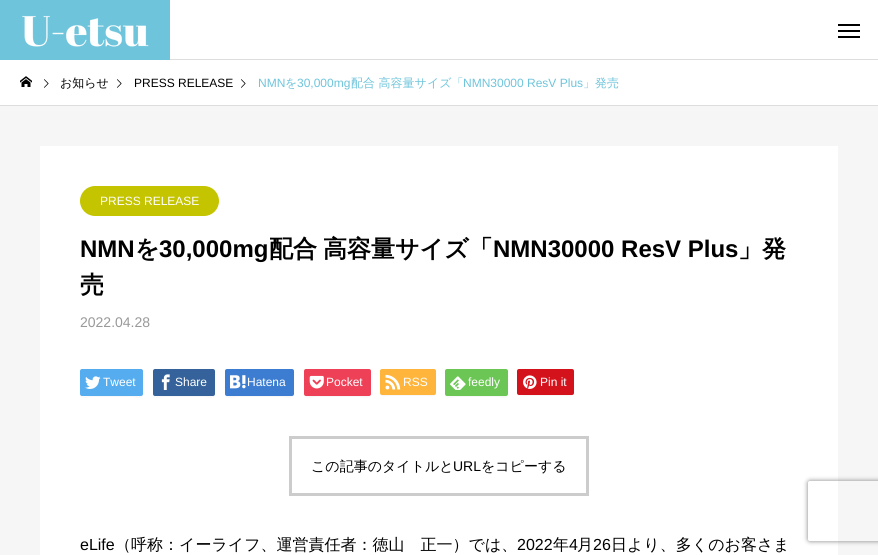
import math
import cairocffi as cairo

surface = cairo.ImageSurface(cairo.FORMAT_RGB24, 878, 555)
cr = cairo.Context(surface)
options = cairo.FontOptions()
options.set_hint_metrics(cairo.HINT_METRICS_OFF)
options.set_hint_style(cairo.HINT_STYLE_NONE)
cr.set_font_options(options)
cr.set_miter_limit(4)


def use_color(code):
    cr.set_source_rgb(*(v / 255 for v in bytes.fromhex(code[-6:])))


def round_rect(x, y, w, h, r):
    cr.new_sub_path()
    for i, (u, v) in enumerate([(x + w - r, y + h - r), (x + r, y + h - r), (x + r, y + r), (x + w - r, y + r)]):
        cr.arc(u, v, r, i * math.pi / 2, (i + 1) * math.pi / 2)
    cr.close_path()


def shadow(x, y, w, h, r, blur, alpha):
    cr.push_group_with_content(cairo.CONTENT_ALPHA)
    cr.set_operator(cairo.OPERATOR_SOURCE)
    for i in range(15, -16, -2):
        e = blur * i / 6
        if min(w, h) + 2 * e > 0:
            cr.set_source_rgba(0, 0, 0, alpha * math.erfc((i - 1) / 8.5) / 2)
            round_rect(x - e, y - e, w + 2 * e, h + 2 * e, max(0, min(r + e + blur * .6, min(w, h) / 2 + e)))
            cr.fill()
    cr.mask(cr.pop_group())


def picture(path, x, y, w, h):
    cr.save()
    cr.set_source_surface(cairo.ImageSurface.create_from_png(path), x, y)
    cr.rectangle(x, y, w, h)
    cr.fill()
    cr.restore()


use_color("#ffffff")
cr.paint()
use_color("#6ec4db")
cr.rectangle(0, 0, 170, 60)
cr.fill()
picture("img1.png", 22, 15, 127, 32)
use_color("#000000")
cr.rectangle(838, 24, 22, 2)
cr.fill()
cr.rectangle(838, 30, 22, 2)
cr.fill()
cr.rectangle(838, 36, 22, 2)
cr.fill()
use_color("#dddddd")
cr.rectangle(170, 59, 708, 1)
cr.fill()
cr.rectangle(0, 105, 878, 1)
cr.fill()
picture("img2.png", 20, 76, 12, 11)
picture("img3.png", 44, 79, 5, 9)
cr.select_font_face("WenQuanYi Zen Hei Medium")
cr.set_font_size(12)
use_color("#000000")
cr.move_to(60, 87)
cr.show_text("お知らせ")
picture("img3.png", 117, 79, 5, 9)
cr.select_font_face("Liberation Sans")
cr.move_to(134, 87)
cr.show_text("PRESS RELEASE")
picture("img3.png", 241, 79, 5, 9)
use_color("#6ec4db")
cr.move_to(258, 87)
cr.show_text("NMN")
cr.select_font_face("WenQuanYi Zen Hei Medium")
cr.move_to(285, 87)
cr.show_text("を")
cr.select_font_face("Liberation Sans")
cr.move_to(297, 87)
cr.show_text("30,000mg")
cr.select_font_face("WenQuanYi Zen Hei Medium")
cr.move_to(351, 87)
cr.show_text("配合 高容量サイズ「")
cr.select_font_face("Liberation Sans")
cr.move_to(463, 87)
cr.show_text("NMN30000 ResV Plus")
cr.select_font_face("WenQuanYi Zen Hei Medium")
cr.move_to(583, 87)
cr.show_text("」発売")
use_color("#f6f6f6")
cr.rectangle(0, 106, 878, 449)
cr.fill()
use_color("#ffffff")
cr.rectangle(40, 146, 798, 409)
cr.fill()
use_color("#c4c400")
round_rect(80, 186, 139, 30, 15)
cr.fill()
cr.select_font_face("Liberation Sans")
use_color("#ffffff")
cr.move_to(100, 205)
cr.show_text("PRESS RELEASE")
cr.select_font_face("Liberation Sans", cairo.FONT_SLANT_NORMAL, cairo.FONT_WEIGHT_BOLD)
cr.set_font_size(24)
use_color("#000000")
cr.move_to(80, 257)
cr.show_text("NMN")
cr.select_font_face("WenQuanYi Zen Hei", cairo.FONT_SLANT_NORMAL, cairo.FONT_WEIGHT_BOLD)
cr.move_to(135, 257)
cr.show_text("を")
cr.select_font_face("Liberation Sans", cairo.FONT_SLANT_NORMAL, cairo.FONT_WEIGHT_BOLD)
cr.move_to(159, 257)
cr.show_text("30,000mg")
cr.select_font_face("WenQuanYi Zen Hei", cairo.FONT_SLANT_NORMAL, cairo.FONT_WEIGHT_BOLD)
cr.move_to(269, 257)
cr.show_text("配合")
cr.move_to(323, 257)
cr.show_text("高容量サイズ「")
cr.select_font_face("Liberation Sans", cairo.FONT_SLANT_NORMAL, cairo.FONT_WEIGHT_BOLD)
cr.move_to(493, 257)
cr.show_text("NMN30000 ResV Plus")
cr.select_font_face("WenQuanYi Zen Hei", cairo.FONT_SLANT_NORMAL, cairo.FONT_WEIGHT_BOLD)
cr.move_to(738, 257)
cr.show_text("」発")
cr.move_to(80, 293)
cr.show_text("売")
cr.select_font_face("Liberation Sans")
cr.set_font_size(14)
use_color("#999999")
cr.move_to(80, 327)
cr.show_text("2022.04.28")
use_color("#f7f7f7")
cr.new_path()
cr.move_to(80, 394)
cr.curve_to(80, 400, 88, 397, 92, 397)
cr.line_to(131, 397)
cr.curve_to(135, 397, 143, 400, 143, 394)
cr.line_to(142, 396)
cr.line_to(92, 396)
cr.curve_to(88, 396, 80, 398, 80, 394)
cr.close_path()
cr.fill()
use_color("#55acee")
round_rect(80, 369, 63, 27, 2)
cr.fill()
picture("img4.png", 85, 376, 16, 13)
cr.set_font_size(12)
use_color("#ffffff")
cr.move_to(103, 386)
cr.show_text("Tweet")
use_color("#f7f7f7")
cr.new_path()
cr.move_to(153, 394)
cr.curve_to(153, 400, 161, 397, 165, 397)
cr.line_to(203, 397)
cr.curve_to(207, 397, 215, 400, 215, 394)
cr.line_to(214, 396)
cr.line_to(165, 396)
cr.curve_to(161, 396, 153, 398, 153, 394)
cr.close_path()
cr.fill()
use_color("#35629a")
round_rect(153, 369, 62, 27, 2)
cr.fill()
picture("img5.png", 161, 374, 9, 16)
use_color("#ffffff")
cr.move_to(175, 386)
cr.show_text("Share")
use_color("#f7f7f7")
cr.new_path()
cr.move_to(225, 394)
cr.curve_to(225, 400, 234, 397, 238, 397)
cr.line_to(281, 397)
cr.curve_to(285, 397, 294, 400, 294, 394)
cr.curve_to(294, 395, 293, 396, 292, 396)
cr.line_to(226, 396)
cr.close_path()
cr.fill()
use_color("#3c7dd1")
round_rect(225, 369, 69, 27, 2)
cr.fill()
picture("img6.png", 230, 375, 16, 14)
use_color("#ffffff")
cr.move_to(247, 386)
cr.show_text("Hatena")
use_color("#f7f7f7")
cr.new_path()
cr.move_to(304, 394)
cr.curve_to(304, 400, 313, 397, 316, 397)
cr.line_to(358, 397)
cr.curve_to(362, 397, 371, 400, 371, 394)
cr.line_to(370, 396)
cr.line_to(306, 396)
cr.line_to(304, 395)
cr.close_path()
cr.fill()
use_color("#ee4056")
round_rect(304, 369, 67, 27, 2)
cr.fill()
picture("img7.png", 309, 375, 15, 14)
use_color("#ffffff")
cr.move_to(326, 386)
cr.show_text("Pocket")
use_color("#f7f7f7")
cr.new_path()
cr.move_to(380, 393)
cr.curve_to(380, 398, 387, 396, 391, 396)
cr.line_to(425, 396)
cr.curve_to(429, 396, 436, 398, 436, 393)
cr.line_to(435, 395)
cr.line_to(381, 395)
cr.close_path()
cr.fill()
use_color("#ffb53c")
round_rect(380, 369, 56, 26, 2)
cr.fill()
picture("img8.png", 385, 374, 16, 16)
use_color("#ffffff")
cr.move_to(403, 386)
cr.show_text("RSS")
use_color("#f7f7f7")
cr.new_path()
cr.move_to(445, 394)
cr.curve_to(445, 400, 453, 397, 457, 397)
cr.line_to(496, 397)
cr.curve_to(500, 397, 508, 400, 508, 394)
cr.line_to(507, 396)
cr.line_to(457, 396)
cr.curve_to(453, 396, 445, 398, 445, 394)
cr.close_path()
cr.fill()
use_color("#6cc655")
round_rect(445, 369, 63, 27, 2)
cr.fill()
picture("img9.png", 450, 376, 16, 14)
use_color("#ffffff")
cr.move_to(468, 386)
cr.show_text("feedly")
use_color("#f7f7f7")
cr.new_path()
cr.move_to(517, 393)
cr.curve_to(517, 398, 524, 396, 528, 396)
cr.line_to(563, 396)
cr.curve_to(567, 396, 574, 398, 574, 393)
cr.line_to(573, 395)
cr.line_to(528, 395)
cr.curve_to(524, 395, 517, 397, 517, 393)
cr.close_path()
cr.fill()
use_color("#d4121c")
round_rect(517, 369, 57, 26, 2)
cr.fill()
picture("img10.png", 523, 375, 14, 14)
use_color("#ffffff")
cr.move_to(540, 386)
cr.show_text("Pin it")
cr.rectangle(290.5, 437.5, 297, 57)
use_color("#cccccc")
cr.set_line_width(3)
cr.stroke()
cr.select_font_face("WenQuanYi Zen Hei Medium")
cr.set_font_size(14)
use_color("#000000")
cr.move_to(311, 471)
cr.show_text("この記事のタイトルと")
cr.select_font_face("Liberation Sans")
cr.move_to(453, 471)
cr.show_text("URL")
cr.select_font_face("WenQuanYi Zen Hei Medium")
cr.move_to(481, 471)
cr.show_text("をコピーする")
cr.select_font_face("Liberation Sans")
cr.set_font_size(16)
cr.move_to(80, 550)
cr.show_text("eLife")
cr.select_font_face("WenQuanYi Zen Hei Medium")
cr.move_to(115, 550)
cr.show_text("（呼称：イーライフ、運営責任者：徳山　正一）では、")
cr.select_font_face("Liberation Sans")
cr.move_to(517, 550)
cr.show_text("2022")
cr.select_font_face("WenQuanYi Zen Hei Medium")
cr.move_to(553, 550)
cr.show_text("年")
cr.select_font_face("Liberation Sans")
cr.move_to(569, 550)
cr.show_text("4")
cr.select_font_face("WenQuanYi Zen Hei Medium")
cr.move_to(577, 550)
cr.show_text("月")
cr.select_font_face("Liberation Sans")
cr.move_to(593, 550)
cr.show_text("26")
cr.select_font_face("WenQuanYi Zen Hei Medium")
cr.move_to(611, 550)
cr.show_text("日より、多くのお客さま")
cr.save()
cr.set_fill_rule(cairo.FILL_RULE_EVEN_ODD)
cr.new_path()
cr.move_to(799, 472)
cr.line_to(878, 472)
cr.line_to(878, 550)
cr.line_to(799, 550)
cr.close_path()
cr.move_to(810, 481)
cr.line_to(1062, 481)
cr.curve_to(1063, 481, 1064, 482, 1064, 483)
cr.line_to(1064, 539)
cr.curve_to(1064, 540, 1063, 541, 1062, 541)
cr.line_to(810, 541)
cr.curve_to(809, 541, 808, 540, 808, 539)
cr.line_to(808, 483)
cr.curve_to(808, 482, 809, 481, 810, 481)
cr.close_path()
cr.clip()
use_color("#808080")
shadow(808, 481, 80, 60, 2, 2.5, 1)
cr.restore()
surface.write_to_png("result.png")
